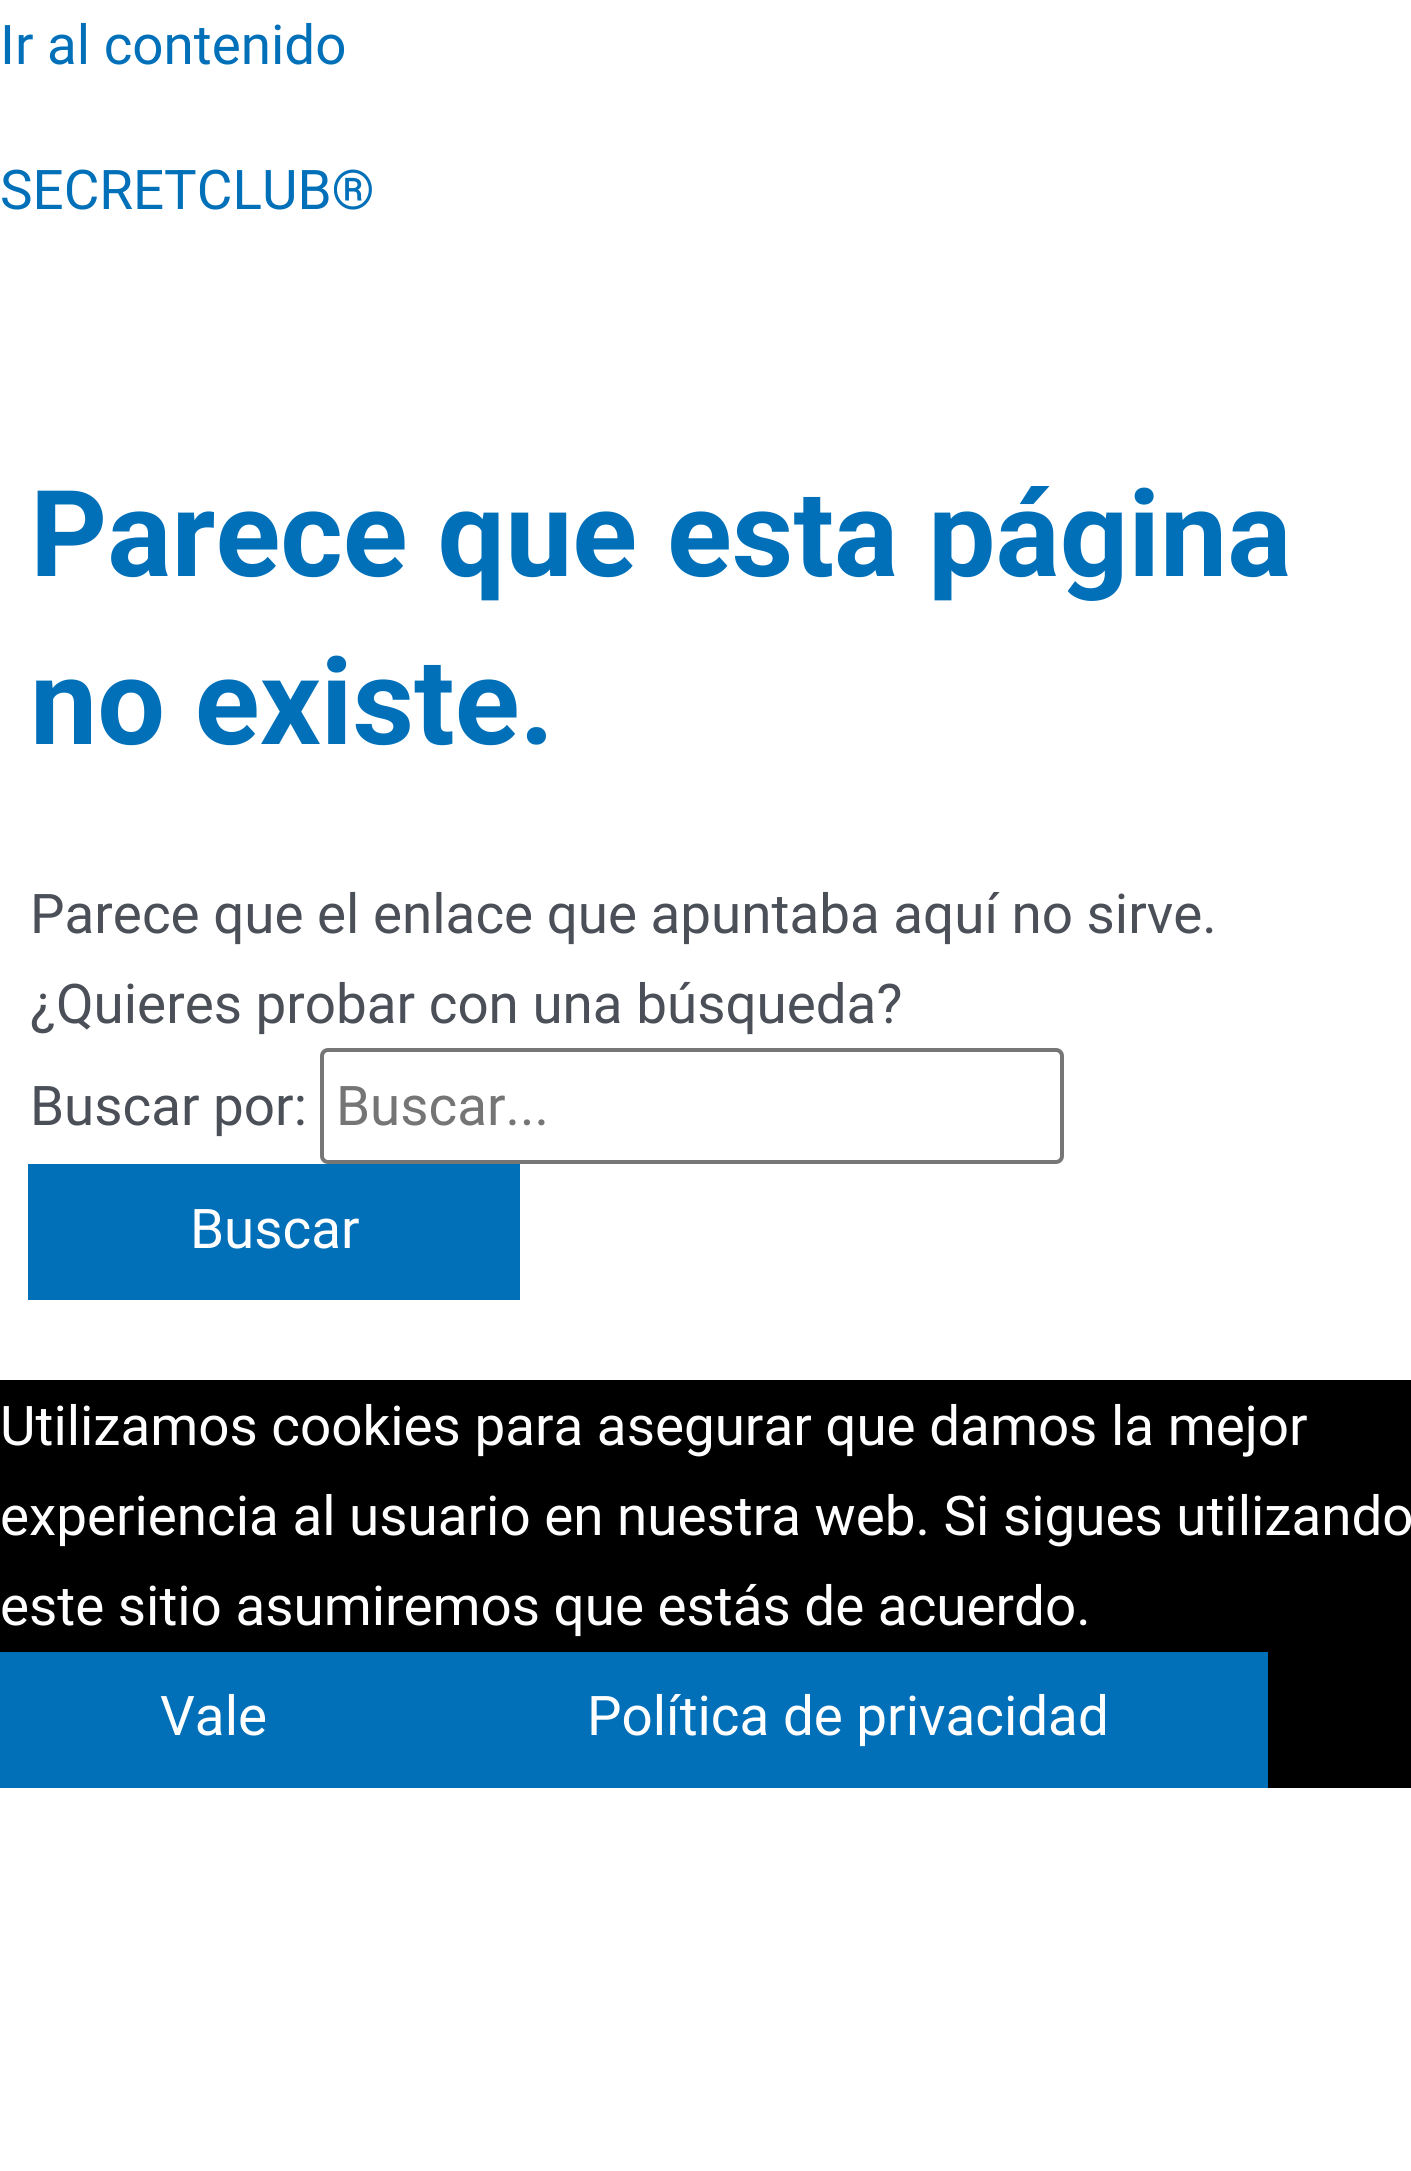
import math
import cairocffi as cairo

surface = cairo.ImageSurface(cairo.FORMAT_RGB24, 1411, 2171)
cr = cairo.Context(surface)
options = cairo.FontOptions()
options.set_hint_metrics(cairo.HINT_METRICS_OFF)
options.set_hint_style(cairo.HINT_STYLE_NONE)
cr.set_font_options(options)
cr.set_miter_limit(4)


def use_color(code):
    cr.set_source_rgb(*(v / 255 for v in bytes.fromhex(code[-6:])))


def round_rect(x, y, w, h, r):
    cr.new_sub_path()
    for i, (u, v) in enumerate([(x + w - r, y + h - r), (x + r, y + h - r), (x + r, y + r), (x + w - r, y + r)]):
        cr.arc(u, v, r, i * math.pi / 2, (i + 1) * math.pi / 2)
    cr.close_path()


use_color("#ffffff")
cr.paint()
cr.select_font_face("Roboto")
cr.set_font_size(54.75)
use_color("#0170b9")
cr.move_to(0, 64)
cr.show_text("Ir al contenido")
cr.move_to(0, 209)
cr.show_text("SECRETCLUB®")
cr.select_font_face("Roboto", cairo.FONT_SLANT_NORMAL, cairo.FONT_WEIGHT_BOLD)
cr.set_font_size(120)
cr.move_to(30, 576)
cr.show_text("Parece que esta página")
cr.move_to(30, 744)
cr.show_text("no existe.")
cr.select_font_face("Roboto")
cr.set_font_size(54.75)
use_color("#4b4f58")
cr.move_to(30, 933)
cr.show_text("Parece que el enlace que apuntaba aquí no sirve.")
cr.move_to(30, 1023)
cr.show_text("¿Quieres probar con una búsqueda?")
cr.move_to(30, 1125)
cr.show_text("Buscar por:")
round_rect(322, 1050, 740, 112, 6)
use_color("#767676")
cr.set_line_width(4)
cr.stroke()
use_color("#757575")
cr.move_to(336, 1125)
cr.show_text("Buscar...")
use_color("#0170b9")
cr.rectangle(28, 1164, 492, 136)
cr.fill()
use_color("#ffffff")
cr.move_to(190, 1248)
cr.show_text("Buscar")
use_color("#000000")
cr.rectangle(0, 1380, 1411, 408)
cr.fill()
use_color("#ffffff")
cr.move_to(0, 1445)
cr.show_text("Utilizamos cookies para asegurar que damos la mejor")
cr.move_to(0, 1535)
cr.show_text("experiencia al usuario en nuestra web. Si sigues utilizando")
cr.move_to(0, 1625)
cr.show_text("este sitio asumiremos que estás de acuerdo.")
use_color("#0170b9")
cr.rectangle(0, 1652, 1268, 136)
cr.fill()
use_color("#ffffff")
cr.move_to(160, 1735)
cr.show_text("Vale")
cr.move_to(587, 1735)
cr.show_text("Política de privacidad")
surface.write_to_png("result.png")
